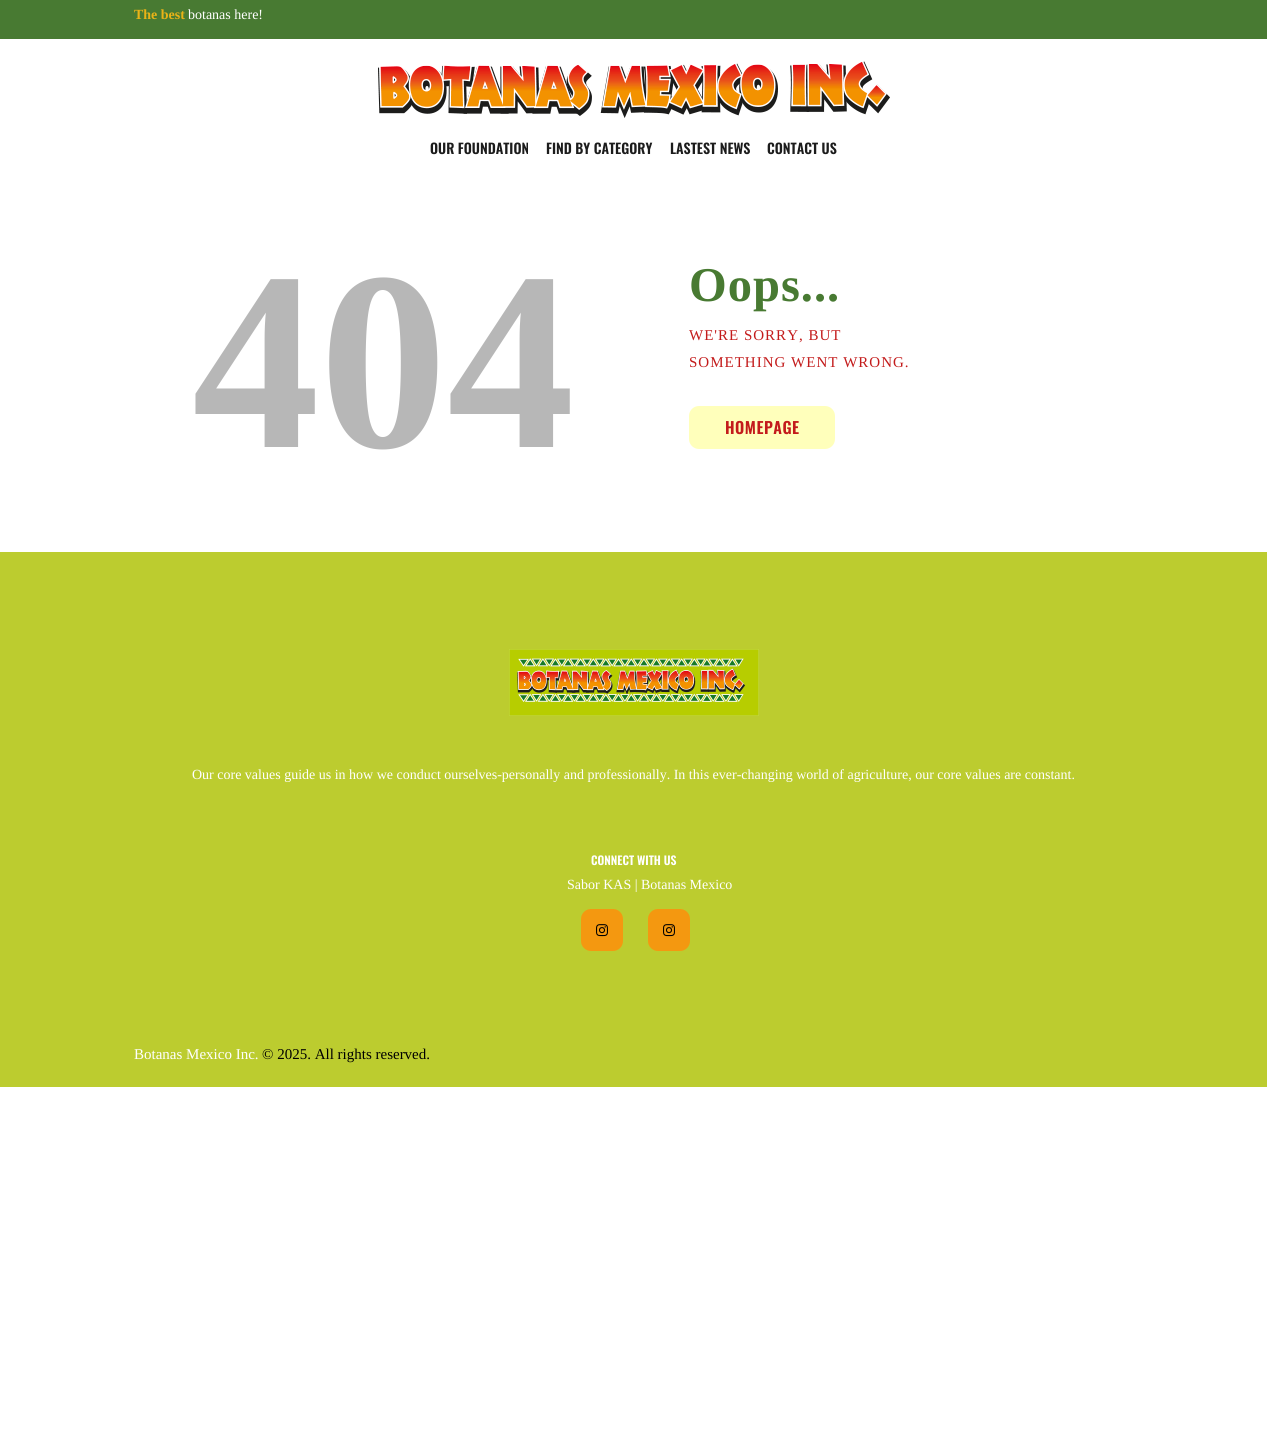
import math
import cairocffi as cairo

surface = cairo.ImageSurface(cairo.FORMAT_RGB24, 1267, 1450)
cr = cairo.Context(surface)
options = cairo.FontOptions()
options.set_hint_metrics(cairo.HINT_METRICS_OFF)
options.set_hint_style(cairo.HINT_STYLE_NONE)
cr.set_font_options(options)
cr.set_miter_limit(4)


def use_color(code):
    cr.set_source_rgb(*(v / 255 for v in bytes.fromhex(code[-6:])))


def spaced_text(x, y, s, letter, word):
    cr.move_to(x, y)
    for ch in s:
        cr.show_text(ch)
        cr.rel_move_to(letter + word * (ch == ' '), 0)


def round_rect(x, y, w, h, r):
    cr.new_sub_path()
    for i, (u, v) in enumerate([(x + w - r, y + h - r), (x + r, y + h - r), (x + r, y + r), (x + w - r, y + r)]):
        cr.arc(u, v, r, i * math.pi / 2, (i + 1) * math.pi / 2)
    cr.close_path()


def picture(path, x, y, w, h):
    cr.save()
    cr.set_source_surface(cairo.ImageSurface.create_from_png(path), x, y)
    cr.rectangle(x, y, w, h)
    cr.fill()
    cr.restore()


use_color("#ffffff")
cr.paint()
use_color("#487a32")
cr.rectangle(0, 0, 1267, 39)
cr.fill()
cr.select_font_face("Liberation Serif", cairo.FONT_SLANT_NORMAL, cairo.FONT_WEIGHT_BOLD)
cr.set_font_size(14)
use_color("#eab317")
cr.move_to(134, 19)
cr.show_text("The best")
cr.select_font_face("Liberation Serif")
use_color("#ffffff")
cr.move_to(188, 19)
cr.show_text("botanas here!")
picture("img1.png", 378, 61, 512, 57)
cr.select_font_face("Oswald SemiBold")
use_color("#1c1c1c")
cr.move_to(430, 154)
cr.show_text("OUR FOUNDATION")
cr.move_to(546, 154)
cr.show_text("FIND BY CATEGORY")
cr.move_to(670, 154)
cr.show_text("LASTEST NEWS")
cr.move_to(767, 154)
cr.show_text("CONTACT US")
cr.select_font_face("Liberation Serif", cairo.FONT_SLANT_NORMAL, cairo.FONT_WEIGHT_BOLD)
cr.set_font_size(255)
use_color("#b7b7b7")
cr.move_to(192, 447)
cr.show_text("404")
cr.set_font_size(48.5)
use_color("#487a32")
spaced_text(689, 301, "Oops...", 1, 0)
cr.select_font_face("Liberation Serif")
cr.set_font_size(15)
use_color("#c31b1b")
spaced_text(689, 340, "WE'RE SORRY, BUT", 1, 0)
spaced_text(689, 367, "SOMETHING WENT WRONG.", 1, 0)
use_color("#ffffbb")
round_rect(689, 406, 146, 43, 10)
cr.fill()
cr.select_font_face("Oswald SemiBold")
cr.set_font_size(16)
use_color("#c31b1b")
spaced_text(725, 434, "HOMEPAGE", 0.5, 0)
use_color("#bccc2f")
cr.rectangle(0, 552, 1267, 535)
cr.fill()
picture("img2.png", 509, 649, 250, 67)
cr.select_font_face("Liberation Serif")
cr.set_font_size(14)
use_color("#ffffff")
cr.move_to(192, 779)
cr.show_text("Our core values guide us in how we conduct ourselves-personally and professionally. In this ever-changing world of agriculture, our core values are constant.")
cr.select_font_face("Oswald SemiBold")
cr.set_font_size(11.75)
cr.move_to(591, 865)
cr.show_text("CONNECT WITH US")
cr.select_font_face("Liberation Serif")
cr.set_font_size(14)
cr.move_to(567, 889)
cr.show_text("Sabor KAS | Botanas Mexico")
use_color("#f49810")
round_rect(581, 909, 42, 42, 10)
cr.fill()
picture("img3.png", 596, 924, 12, 13)
round_rect(648, 909, 42, 42, 10)
cr.fill()
picture("img3.png", 663, 924, 12, 13)
cr.set_font_size(15)
use_color("#ffffff")
cr.move_to(134, 1059)
cr.show_text("Botanas Mexico Inc.")
use_color("#000000")
cr.move_to(262, 1059)
cr.show_text("© 2025. All rights reserved.")
surface.write_to_png("result.png")
